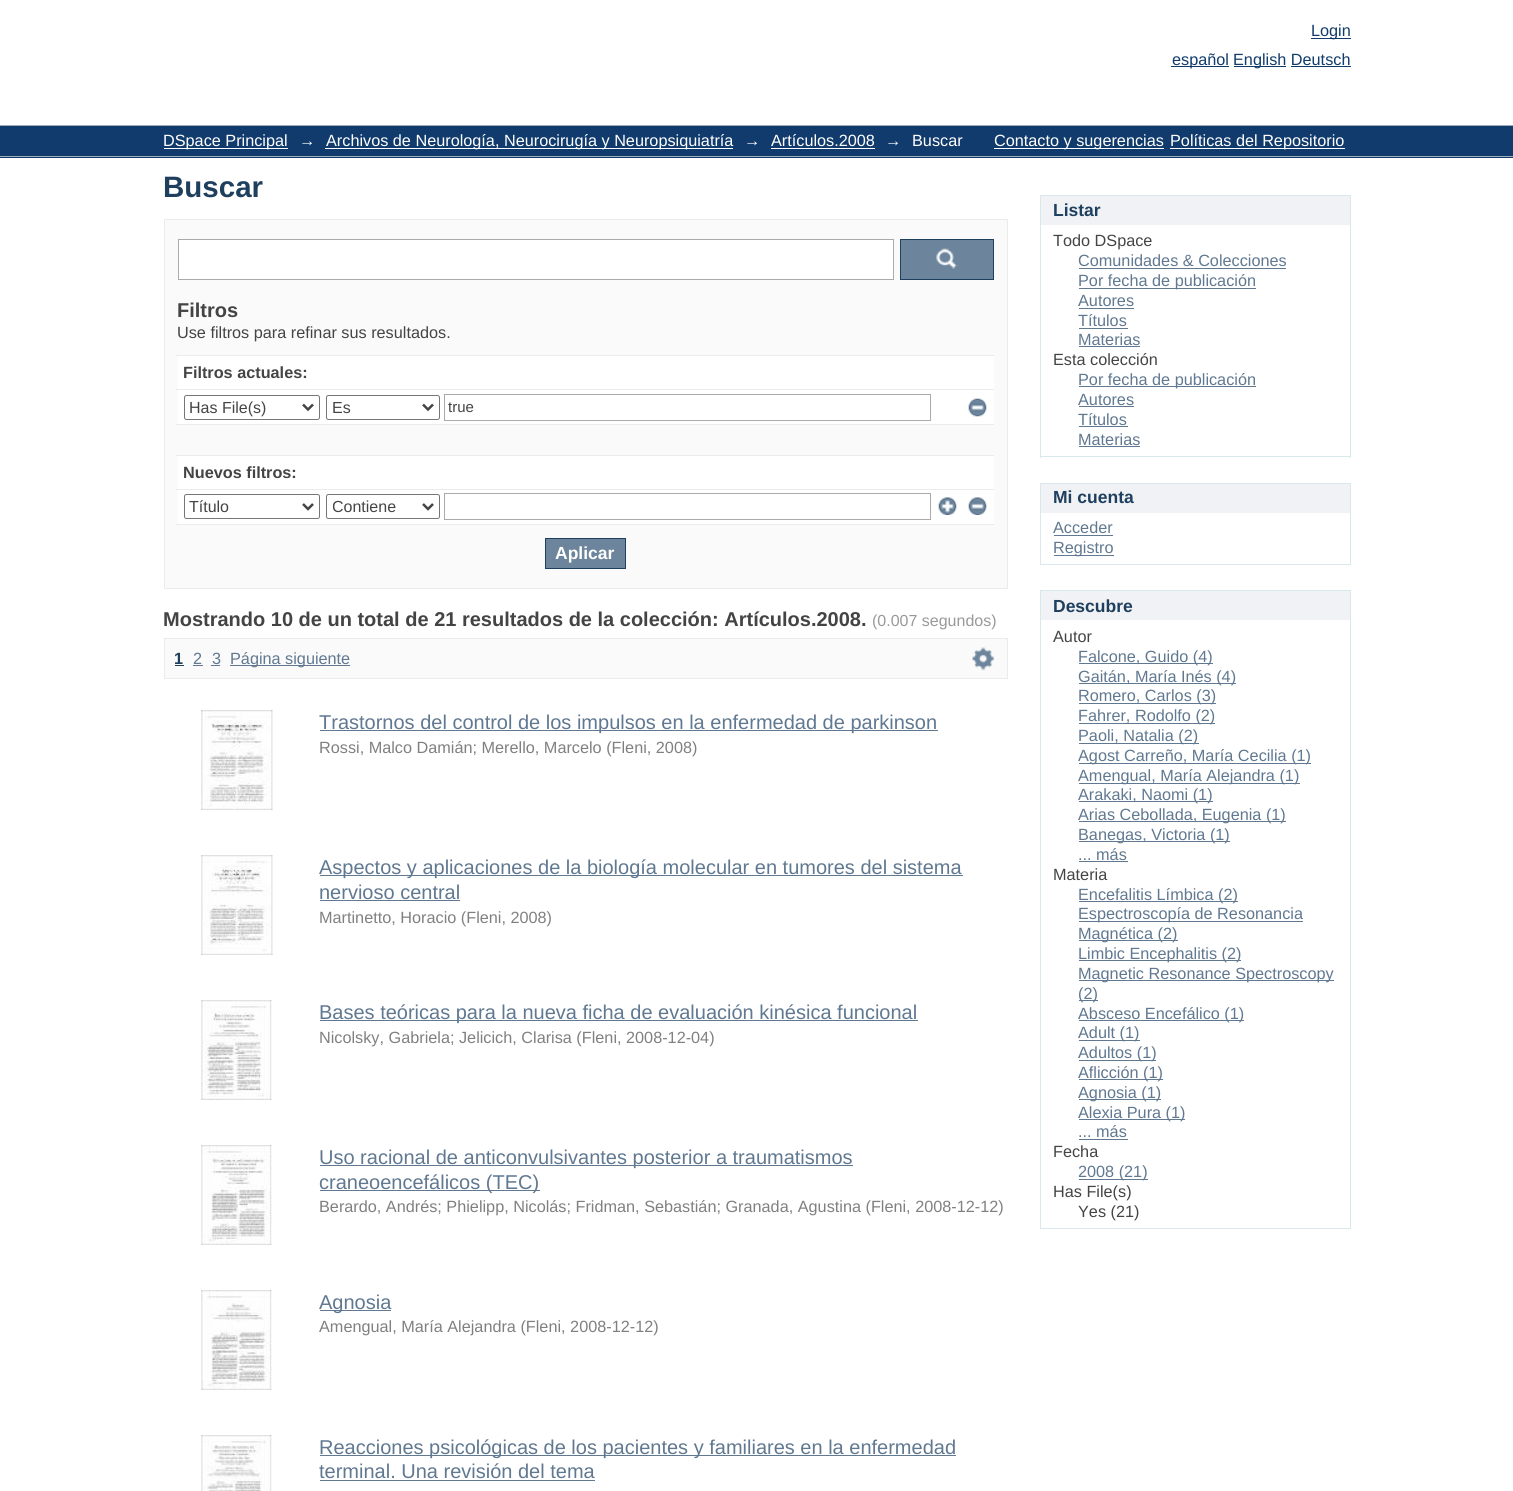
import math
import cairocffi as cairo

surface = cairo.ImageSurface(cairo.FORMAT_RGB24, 1513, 1491)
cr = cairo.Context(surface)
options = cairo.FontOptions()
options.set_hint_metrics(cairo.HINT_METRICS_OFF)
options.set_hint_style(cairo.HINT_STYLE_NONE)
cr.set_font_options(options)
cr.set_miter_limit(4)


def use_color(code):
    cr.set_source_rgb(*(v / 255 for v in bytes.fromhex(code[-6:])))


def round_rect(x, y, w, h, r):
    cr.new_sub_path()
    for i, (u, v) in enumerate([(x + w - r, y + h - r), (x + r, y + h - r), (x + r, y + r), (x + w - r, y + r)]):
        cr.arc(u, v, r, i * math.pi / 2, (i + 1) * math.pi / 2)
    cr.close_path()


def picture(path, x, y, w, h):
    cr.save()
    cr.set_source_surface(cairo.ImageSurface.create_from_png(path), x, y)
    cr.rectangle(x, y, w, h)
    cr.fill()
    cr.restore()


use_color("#ffffff")
cr.paint()
use_color("#113b6c")
cr.rectangle(1311, 38, 40, 1)
cr.fill()
cr.select_font_face("Liberation Sans")
cr.set_font_size(16.25)
cr.move_to(1311, 36)
cr.show_text("Login")
cr.rectangle(1171, 66, 58, 1)
cr.fill()
cr.move_to(1172, 65)
cr.show_text("español")
cr.rectangle(1234, 66, 52, 1)
cr.fill()
cr.move_to(1233, 65)
cr.show_text("English Deutsch")
cr.rectangle(1291, 66, 60, 1)
cr.fill()
cr.rectangle(0, 126, 1513, 32)
cr.fill()
use_color("#9cacba")
cr.rectangle(0, 125, 1513, 1)
cr.fill()
cr.rectangle(0, 156, 1513, 1)
cr.fill()
use_color("#ffffff")
cr.rectangle(164, 148, 124, 1)
cr.fill()
cr.move_to(163, 146)
cr.show_text("DSpace Principal")
cr.move_to(299, 146)
cr.show_text("→")
cr.rectangle(325, 148, 408, 1)
cr.fill()
cr.move_to(326, 146)
cr.show_text("Archivos de Neurología, Neurocirugía y Neuropsiquiatría")
cr.move_to(744, 146)
cr.show_text("→")
cr.move_to(771, 146)
cr.show_text("Artículos.2008")
cr.rectangle(771, 148, 104, 1)
cr.fill()
cr.move_to(885, 146)
cr.show_text("→")
cr.move_to(912, 146)
cr.show_text("Buscar")
cr.rectangle(994, 148, 170, 1)
cr.fill()
cr.move_to(994, 146)
cr.show_text("Contacto y sugerencias")
cr.rectangle(1170, 148, 175, 1)
cr.fill()
cr.move_to(1170, 146)
cr.show_text("Políticas del Repositorio")
cr.select_font_face("Liberation Sans", cairo.FONT_SLANT_NORMAL, cairo.FONT_WEIGHT_BOLD)
cr.set_font_size(29.5)
use_color("#1f3f5e")
cr.move_to(163, 197)
cr.show_text("Buscar")
use_color("#fafafa")
cr.rectangle(164.5, 219.5, 843, 369)
cr.fill_preserve()
use_color("#ebebeb")
cr.set_line_width(1)
cr.stroke()
use_color("#ffffff")
cr.rectangle(178.5, 239.5, 715, 40)
cr.fill_preserve()
use_color("#aaaaaa")
cr.stroke()
use_color("#6d859c")
cr.rectangle(901, 240, 92, 39)
cr.fill()
picture("img1.png", 936, 248, 21, 21)
cr.rectangle(900.5, 239.5, 93, 40)
use_color("#1f3f5e")
cr.stroke()
cr.set_font_size(20)
use_color("#444444")
cr.move_to(177, 317)
cr.show_text("Filtros")
cr.select_font_face("Liberation Sans")
cr.set_font_size(16.25)
cr.move_to(177, 338)
cr.show_text("Use filtros para refinar sus resultados.")
use_color("#ffffff")
cr.rectangle(178, 356, 816, 168)
cr.fill()
use_color("#ebebeb")
cr.rectangle(176, 355, 818, 1)
cr.fill()
cr.select_font_face("Liberation Sans", cairo.FONT_SLANT_NORMAL, cairo.FONT_WEIGHT_BOLD)
use_color("#444444")
cr.move_to(183, 378)
cr.show_text("Filtros actuales:")
use_color("#ebebeb")
cr.rectangle(176, 389, 818, 1)
cr.fill()
round_rect(184.5, 395.5, 135, 24, 2)
use_color("#767676")
cr.stroke()
cr.new_path()
cr.move_to(303, 404.5)
cr.line_to(308, 409.5)
cr.line_to(313, 404.5)
use_color("#444444")
cr.set_line_width(2.5)
cr.stroke()
cr.select_font_face("Liberation Sans")
cr.set_font_size(16)
cr.move_to(189, 413)
cr.show_text("Has File(s)")
round_rect(326.5, 395.5, 113, 24, 2)
use_color("#767676")
cr.set_line_width(1)
cr.stroke()
cr.new_path()
cr.move_to(423, 404.5)
cr.line_to(428, 409.5)
cr.line_to(433, 404.5)
use_color("#444444")
cr.set_line_width(2.5)
cr.stroke()
cr.move_to(332, 413)
cr.show_text("Es")
cr.rectangle(444.5, 394.5, 486, 26)
use_color("#aaaaaa")
cr.set_line_width(1)
cr.stroke()
cr.set_font_size(15)
use_color("#444444")
cr.move_to(448, 412)
cr.show_text("true")
picture("img2.png", 968, 398, 19, 19)
use_color("#fafafa")
cr.rectangle(178, 425, 816, 30)
cr.fill()
use_color("#ebebeb")
cr.rectangle(176, 424, 818, 1)
cr.fill()
cr.rectangle(176, 455, 818, 1)
cr.fill()
cr.select_font_face("Liberation Sans", cairo.FONT_SLANT_NORMAL, cairo.FONT_WEIGHT_BOLD)
cr.set_font_size(16.25)
use_color("#444444")
cr.move_to(183, 478)
cr.show_text("Nuevos filtros:")
use_color("#ebebeb")
cr.rectangle(176, 489, 818, 1)
cr.fill()
round_rect(184.5, 494.5, 135, 24, 2)
use_color("#767676")
cr.stroke()
cr.new_path()
cr.move_to(303, 504)
cr.line_to(308, 509)
cr.line_to(313, 504)
use_color("#444444")
cr.set_line_width(2.5)
cr.stroke()
cr.select_font_face("Liberation Sans")
cr.set_font_size(16)
cr.move_to(189, 512)
cr.show_text("Título")
round_rect(326.5, 494.5, 113, 24, 2)
use_color("#767676")
cr.set_line_width(1)
cr.stroke()
cr.new_path()
cr.move_to(423, 504)
cr.line_to(428, 509)
cr.line_to(433, 504)
use_color("#444444")
cr.set_line_width(2.5)
cr.stroke()
cr.save()
cr.rectangle(333, 496, 86, 22)
cr.clip()
cr.move_to(332, 512)
cr.show_text("Contiene")
cr.restore()
cr.rectangle(444.5, 493.5, 486, 26)
use_color("#aaaaaa")
cr.set_line_width(1)
cr.stroke()
picture("img3.png", 938, 497, 19, 18)
picture("img4.png", 968, 497, 19, 18)
use_color("#ebebeb")
cr.rectangle(176, 524, 818, 1)
cr.fill()
use_color("#6d859c")
cr.rectangle(545.5, 538.5, 80, 30)
cr.fill_preserve()
use_color("#1f3f5e")
cr.stroke()
cr.select_font_face("Liberation Sans", cairo.FONT_SLANT_NORMAL, cairo.FONT_WEIGHT_BOLD)
cr.set_font_size(17.5)
use_color("#ffffff")
cr.move_to(555, 559)
cr.show_text("Aplicar")
cr.set_font_size(20)
use_color("#444444")
cr.move_to(163, 626)
cr.show_text("Mostrando 10 de un total de 21 resultados de la colección: Artículos.2008.")
cr.select_font_face("Liberation Sans")
cr.set_font_size(16)
use_color("#999999")
cr.move_to(872, 626)
cr.show_text("(0.007 segundos)")
use_color("#fafafa")
cr.rectangle(164.5, 638.5, 843, 40)
cr.fill_preserve()
use_color("#ebebeb")
cr.stroke()
cr.select_font_face("Liberation Sans", cairo.FONT_SLANT_NORMAL, cairo.FONT_WEIGHT_BOLD)
cr.set_font_size(16.25)
use_color("#1f3f5e")
cr.move_to(174, 664)
cr.show_text("1")
cr.rectangle(175, 665, 9, 1)
cr.fill()
cr.select_font_face("Liberation Sans")
use_color("#607890")
cr.move_to(193, 664)
cr.show_text("2")
cr.rectangle(193, 665, 10, 1)
cr.fill()
cr.move_to(212, 664)
cr.show_text("3")
cr.rectangle(211, 665, 9, 1)
cr.fill()
cr.rectangle(230, 665, 120, 1)
cr.fill()
cr.move_to(230, 664)
cr.show_text("Página siguiente")
picture("img5.png", 972, 647, 22, 24)
picture("img6.png", 201, 710, 72, 100)
cr.rectangle(320, 730, 618, 1)
cr.fill()
cr.set_font_size(20)
cr.move_to(319, 729)
cr.show_text("Trastornos del control de los impulsos en la enfermedad de parkinson")
cr.set_font_size(16.25)
use_color("#808080")
cr.move_to(319, 753)
cr.show_text("Rossi, Malco Damián; Merello, Marcelo (Fleni, 2008)")
picture("img7.png", 201, 855, 72, 100)
use_color("#607890")
cr.rectangle(320, 875, 643, 1)
cr.fill()
cr.set_font_size(20)
cr.move_to(319, 874)
cr.show_text("Aspectos y aplicaciones de la biología molecular en tumores del sistema")
cr.move_to(319, 899)
cr.show_text("nervioso central")
cr.rectangle(320, 900, 140, 1)
cr.fill()
cr.set_font_size(16.25)
use_color("#808080")
cr.move_to(319, 923)
cr.show_text("Martinetto, Horacio (Fleni, 2008)")
picture("img8.png", 201, 1000, 71, 100)
use_color("#607890")
cr.rectangle(320, 1020, 598, 1)
cr.fill()
cr.set_font_size(20)
cr.move_to(319, 1019)
cr.show_text("Bases teóricas para la nueva ficha de evaluación kinésica funcional")
cr.set_font_size(16.25)
use_color("#808080")
cr.move_to(319, 1043)
cr.show_text("Nicolsky, Gabriela; Jelicich, Clarisa (Fleni, 2008-12-04)")
picture("img9.png", 201, 1145, 71, 100)
use_color("#607890")
cr.rectangle(320, 1165, 533, 1)
cr.fill()
cr.set_font_size(20)
cr.move_to(319, 1164)
cr.show_text("Uso racional de anticonvulsivantes posterior a traumatismos")
cr.rectangle(320, 1190, 220, 1)
cr.fill()
cr.move_to(319, 1189)
cr.show_text("craneoencefálicos (TEC)")
cr.set_font_size(16.25)
use_color("#808080")
cr.move_to(319, 1212)
cr.show_text("Berardo, Andrés; Phielipp, Nicolás; Fridman, Sebastián; Granada, Agustina (Fleni, 2008-12-12)")
picture("img10.png", 201, 1290, 71, 100)
use_color("#607890")
cr.rectangle(320, 1310, 71, 1)
cr.fill()
cr.set_font_size(20)
cr.move_to(319, 1309)
cr.show_text("Agnosia")
cr.set_font_size(16.25)
use_color("#808080")
cr.move_to(319, 1332)
cr.show_text("Amengual, María Alejandra (Fleni, 2008-12-12)")
picture("img11.png", 201, 1435, 71, 56)
use_color("#607890")
cr.rectangle(320, 1455, 636, 1)
cr.fill()
cr.set_font_size(20)
cr.move_to(319, 1454)
cr.show_text("Reacciones psicológicas de los pacientes y familiares en la enfermedad")
cr.move_to(319, 1478)
cr.show_text("terminal. Una revisión del tema")
cr.rectangle(320, 1480, 275, 1)
cr.fill()
use_color("#f0f2f5")
cr.rectangle(1041, 196, 309, 29)
cr.fill()
use_color("#d8e8eb")
cr.rectangle(1040, 195, 311, 1)
cr.fill()
cr.rectangle(1350, 195, 1, 263)
cr.fill()
cr.rectangle(1040, 195, 1, 30)
cr.fill()
cr.select_font_face("Liberation Sans", cairo.FONT_SLANT_NORMAL, cairo.FONT_WEIGHT_BOLD)
cr.set_font_size(17.5)
use_color("#1f3f5e")
cr.move_to(1053, 216)
cr.show_text("Listar")
use_color("#d8e8eb")
cr.rectangle(1040, 456, 311, 1)
cr.fill()
cr.rectangle(1040, 225, 1, 233)
cr.fill()
cr.select_font_face("Liberation Sans")
cr.set_font_size(16.25)
use_color("#444444")
cr.move_to(1053, 246)
cr.show_text("Todo DSpace")
use_color("#607890")
cr.move_to(1078, 266)
cr.show_text("Comunidades & Colecciones")
cr.rectangle(1079, 268, 207, 1)
cr.fill()
cr.rectangle(1079, 288, 177, 1)
cr.fill()
cr.move_to(1078, 286)
cr.show_text("Por fecha de publicación")
cr.move_to(1078, 306)
cr.show_text("Autores")
cr.rectangle(1079, 308, 55, 1)
cr.fill()
cr.move_to(1078, 326)
cr.show_text("Títulos")
cr.rectangle(1079, 328, 49, 1)
cr.fill()
cr.move_to(1078, 345)
cr.show_text("Materias")
cr.rectangle(1079, 346, 61, 1)
cr.fill()
use_color("#444444")
cr.move_to(1053, 365)
cr.show_text("Esta colección")
use_color("#607890")
cr.rectangle(1079, 386, 177, 1)
cr.fill()
cr.move_to(1078, 385)
cr.show_text("Por fecha de publicación")
cr.move_to(1078, 405)
cr.show_text("Autores")
cr.rectangle(1079, 406, 55, 1)
cr.fill()
cr.move_to(1078, 425)
cr.show_text("Títulos")
cr.rectangle(1079, 426, 49, 1)
cr.fill()
cr.move_to(1078, 445)
cr.show_text("Materias")
cr.rectangle(1079, 446, 61, 1)
cr.fill()
use_color("#f0f2f5")
cr.rectangle(1041, 484, 309, 29)
cr.fill()
use_color("#d8e8eb")
cr.rectangle(1040, 483, 311, 1)
cr.fill()
cr.rectangle(1350, 483, 1, 82)
cr.fill()
cr.rectangle(1040, 483, 1, 30)
cr.fill()
cr.select_font_face("Liberation Sans", cairo.FONT_SLANT_NORMAL, cairo.FONT_WEIGHT_BOLD)
cr.set_font_size(17.5)
use_color("#1f3f5e")
cr.move_to(1053, 503)
cr.show_text("Mi cuenta")
use_color("#d8e8eb")
cr.rectangle(1040, 564, 311, 1)
cr.fill()
cr.rectangle(1040, 513, 1, 52)
cr.fill()
cr.select_font_face("Liberation Sans")
cr.set_font_size(16.25)
use_color("#607890")
cr.move_to(1053, 533)
cr.show_text("Acceder")
cr.rectangle(1054, 535, 59, 1)
cr.fill()
cr.rectangle(1054, 555, 60, 1)
cr.fill()
cr.move_to(1053, 553)
cr.show_text("Registro")
use_color("#f0f2f5")
cr.rectangle(1041, 591, 309, 29)
cr.fill()
use_color("#d8e8eb")
cr.rectangle(1040, 590, 311, 1)
cr.fill()
cr.rectangle(1350, 590, 1, 639)
cr.fill()
cr.rectangle(1040, 590, 1, 30)
cr.fill()
cr.select_font_face("Liberation Sans", cairo.FONT_SLANT_NORMAL, cairo.FONT_WEIGHT_BOLD)
cr.set_font_size(17.5)
use_color("#1f3f5e")
cr.move_to(1053, 612)
cr.show_text("Descubre")
use_color("#d8e8eb")
cr.rectangle(1040, 1228, 311, 1)
cr.fill()
cr.rectangle(1040, 620, 1, 609)
cr.fill()
cr.select_font_face("Liberation Sans")
cr.set_font_size(16.25)
use_color("#444444")
cr.move_to(1053, 642)
cr.show_text("Autor")
use_color("#607890")
cr.rectangle(1079, 663, 134, 1)
cr.fill()
cr.move_to(1078, 662)
cr.show_text("Falcone, Guido (4)")
cr.rectangle(1079, 683, 157, 1)
cr.fill()
cr.move_to(1078, 682)
cr.show_text("Gaitán, María Inés (4)")
cr.rectangle(1079, 703, 137, 1)
cr.fill()
cr.move_to(1078, 701)
cr.show_text("Romero, Carlos (3)")
cr.rectangle(1079, 723, 136, 1)
cr.fill()
cr.move_to(1078, 721)
cr.show_text("Fahrer, Rodolfo (2)")
cr.rectangle(1079, 743, 120, 1)
cr.fill()
cr.move_to(1078, 741)
cr.show_text("Paoli, Natalia (2)")
cr.rectangle(1079, 763, 232, 1)
cr.fill()
cr.move_to(1078, 761)
cr.show_text("Agost Carreño, María Cecilia (1)")
cr.rectangle(1079, 783, 221, 1)
cr.fill()
cr.move_to(1078, 781)
cr.show_text("Amengual, María Alejandra (1)")
cr.rectangle(1079, 801, 134, 1)
cr.fill()
cr.move_to(1078, 800)
cr.show_text("Arakaki, Naomi (1)")
cr.rectangle(1079, 821, 207, 1)
cr.fill()
cr.move_to(1078, 820)
cr.show_text("Arias Cebollada, Eugenia (1)")
cr.rectangle(1079, 841, 151, 1)
cr.fill()
cr.move_to(1078, 840)
cr.show_text("Banegas, Victoria (1)")
cr.move_to(1078, 860)
cr.show_text("... más")
cr.rectangle(1079, 861, 49, 1)
cr.fill()
use_color("#444444")
cr.move_to(1053, 880)
cr.show_text("Materia")
use_color("#607890")
cr.rectangle(1079, 901, 159, 1)
cr.fill()
cr.move_to(1078, 900)
cr.show_text("Encefalitis Límbica (2)")
cr.rectangle(1079, 921, 224, 1)
cr.fill()
cr.move_to(1078, 919)
cr.show_text("Espectroscopía de Resonancia")
cr.rectangle(1079, 940, 99, 1)
cr.fill()
cr.move_to(1078, 939)
cr.show_text("Magnética (2)")
cr.rectangle(1079, 960, 162, 1)
cr.fill()
cr.move_to(1078, 959)
cr.show_text("Limbic Encephalitis (2)")
cr.rectangle(1079, 980, 255, 1)
cr.fill()
cr.move_to(1078, 979)
cr.show_text("Magnetic Resonance Spectroscopy")
cr.rectangle(1079, 1000, 19, 1)
cr.fill()
cr.move_to(1078, 999)
cr.show_text("(2)")
cr.rectangle(1079, 1020, 165, 1)
cr.fill()
cr.move_to(1078, 1019)
cr.show_text("Absceso Encefálico (1)")
cr.rectangle(1079, 1040, 61, 1)
cr.fill()
cr.move_to(1078, 1038)
cr.show_text("Adult (1)")
cr.rectangle(1079, 1060, 77, 1)
cr.fill()
cr.move_to(1078, 1058)
cr.show_text("Adultos (1)")
cr.rectangle(1079, 1079, 84, 1)
cr.fill()
cr.move_to(1078, 1078)
cr.show_text("Aflicción (1)")
cr.rectangle(1079, 1099, 82, 1)
cr.fill()
cr.move_to(1078, 1098)
cr.show_text("Agnosia (1)")
cr.rectangle(1079, 1119, 106, 1)
cr.fill()
cr.move_to(1078, 1118)
cr.show_text("Alexia Pura (1)")
cr.move_to(1078, 1137)
cr.show_text("... más")
cr.rectangle(1079, 1139, 49, 1)
cr.fill()
use_color("#444444")
cr.move_to(1053, 1157)
cr.show_text("Fecha")
use_color("#607890")
cr.rectangle(1079, 1179, 69, 1)
cr.fill()
cr.move_to(1078, 1177)
cr.show_text("2008 (21)")
use_color("#444444")
cr.move_to(1053, 1197)
cr.show_text("Has File(s)")
cr.move_to(1078, 1217)
cr.show_text("Yes (21)")
surface.write_to_png("result.png")
